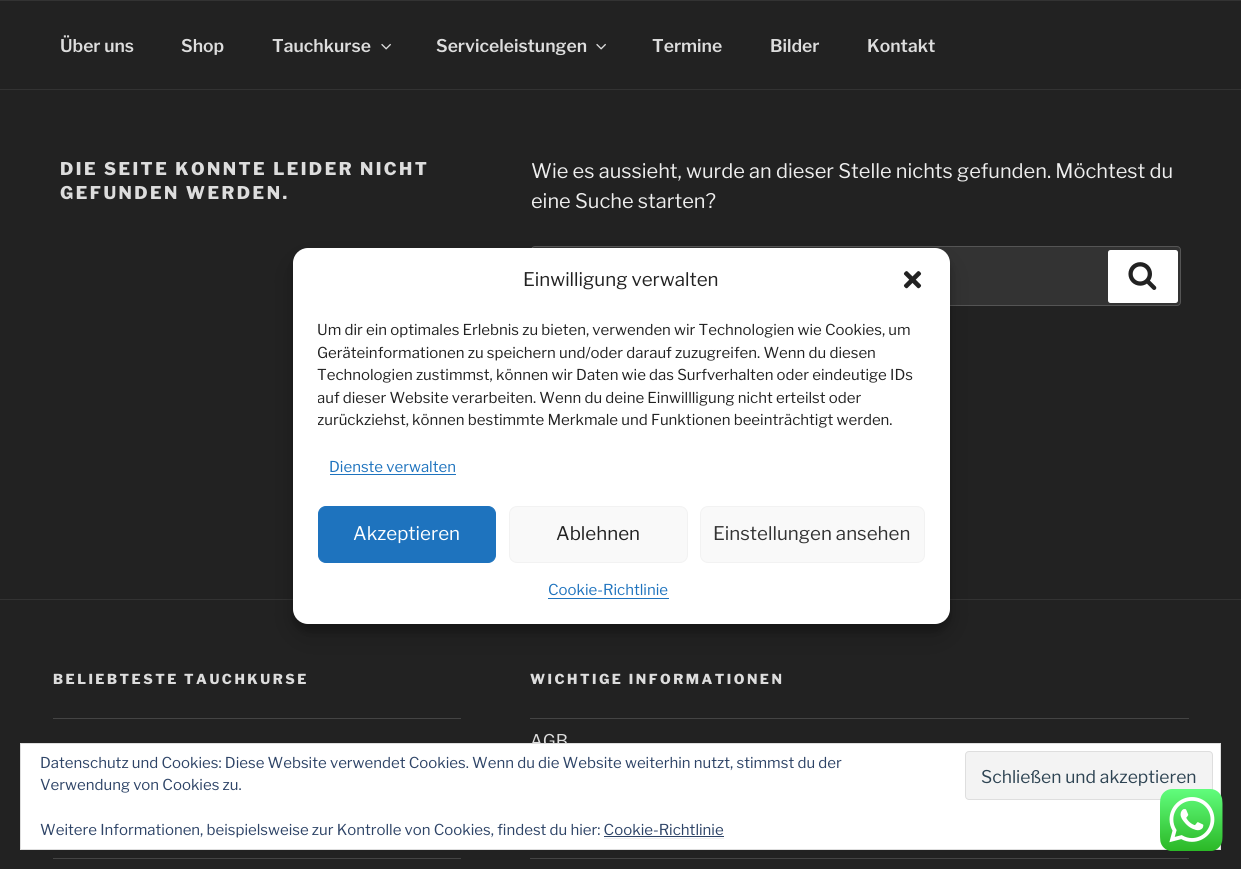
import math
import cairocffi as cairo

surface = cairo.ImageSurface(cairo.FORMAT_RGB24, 1241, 869)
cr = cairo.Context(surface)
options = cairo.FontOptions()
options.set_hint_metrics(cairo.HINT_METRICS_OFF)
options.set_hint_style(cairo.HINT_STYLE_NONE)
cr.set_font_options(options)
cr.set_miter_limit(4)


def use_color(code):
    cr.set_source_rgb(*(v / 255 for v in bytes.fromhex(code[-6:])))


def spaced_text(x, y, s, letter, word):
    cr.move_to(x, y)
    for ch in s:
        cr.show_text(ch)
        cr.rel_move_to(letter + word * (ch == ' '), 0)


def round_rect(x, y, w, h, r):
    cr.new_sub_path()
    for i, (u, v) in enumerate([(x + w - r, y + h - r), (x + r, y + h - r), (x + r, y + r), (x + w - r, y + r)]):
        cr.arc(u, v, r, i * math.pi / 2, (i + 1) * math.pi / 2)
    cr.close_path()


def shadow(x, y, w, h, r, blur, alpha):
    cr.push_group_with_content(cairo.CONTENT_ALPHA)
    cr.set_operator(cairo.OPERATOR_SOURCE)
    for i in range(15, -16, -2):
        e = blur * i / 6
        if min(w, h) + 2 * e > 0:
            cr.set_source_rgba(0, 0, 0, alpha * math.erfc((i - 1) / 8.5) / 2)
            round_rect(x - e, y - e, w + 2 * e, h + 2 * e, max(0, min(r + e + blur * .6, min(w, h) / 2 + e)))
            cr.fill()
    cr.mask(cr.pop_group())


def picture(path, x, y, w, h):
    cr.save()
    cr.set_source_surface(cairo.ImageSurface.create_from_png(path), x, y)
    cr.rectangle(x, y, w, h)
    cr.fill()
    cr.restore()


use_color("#222222")
cr.paint()
use_color("#333333")
cr.rectangle(0, 0, 1241, 1)
cr.fill()
cr.rectangle(0, 89, 1241, 1)
cr.fill()
cr.select_font_face("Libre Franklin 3 Thin")
cr.set_font_size(17.5)
use_color("#dddddd")
cr.move_to(60, 52)
cr.show_text("Über uns")
cr.move_to(181, 52)
cr.show_text("Shop")
cr.move_to(272, 52)
cr.show_text("Tauchkurse")
picture("img1.png", 381, 43, 10, 7)
cr.move_to(436, 52)
cr.show_text("Serviceleistungen")
picture("img1.png", 596, 43, 10, 7)
cr.move_to(652, 52)
cr.show_text("Termine")
cr.move_to(770, 52)
cr.show_text("Bilder")
cr.move_to(867, 52)
cr.show_text("Kontakt")
cr.select_font_face("Libre Franklin Thin")
spaced_text(60, 175, "DIE SEITE KONNTE LEIDER NICHT", 2.45, 0)
spaced_text(60, 199, "GEFUNDEN WERDEN.", 2.45, 0)
cr.select_font_face("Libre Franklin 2 Thin")
cr.set_font_size(20)
use_color("#eeeeee")
cr.move_to(531, 178)
cr.show_text("Wie es aussieht, wurde an dieser Stelle nichts gefunden. Möchtest du")
cr.move_to(531, 208)
cr.show_text("eine Suche starten?")
use_color("#333333")
round_rect(531.5, 246.5, 649, 59, 3.5)
cr.fill_preserve()
use_color("#555555")
cr.set_line_width(1)
cr.stroke()
use_color("#ffffff")
round_rect(1108, 250, 70, 53, 2.5)
cr.fill()
picture("img2.png", 1128, 262, 29, 28)
use_color("#333333")
cr.rectangle(0, 599, 1241, 1)
cr.fill()
cr.select_font_face("Libre Franklin Thin")
cr.set_font_size(13.75)
use_color("#dddddd")
spaced_text(53, 684, "BELIEBTESTE TAUCHKURSE", 2.5, 0)
use_color("#444444")
cr.rectangle(53, 718, 408, 1)
cr.fill()
cr.rectangle(53, 858, 408, 1)
cr.fill()
use_color("#dddddd")
spaced_text(530, 684, "WICHTIGE INFORMATIONEN", 2.5, 0)
use_color("#444444")
cr.rectangle(530, 718, 659, 1)
cr.fill()
cr.select_font_face("Libre Franklin 2 Thin")
cr.set_font_size(17.5)
use_color("#dddddd")
cr.move_to(530, 747)
cr.show_text("AGB")
use_color("#444444")
cr.rectangle(530, 858, 659, 1)
cr.fill()
use_color("#000000")
shadow(293, 255, 657, 376, 15, 4, 0.23)
shadow(293, 260, 657, 376, 15, 12.5, 0.19)
use_color("#ffffff")
round_rect(293, 248, 657, 376, 15)
cr.fill()
cr.set_font_size(18.75)
use_color("#222222")
cr.move_to(523, 286)
cr.show_text("Einwilligung verwalten")
picture("img3.png", 903, 271, 19, 18)
cr.set_font_size(15)
cr.move_to(317, 335)
cr.show_text("Um dir ein optimales Erlebnis zu bieten, verwenden wir Technologien wie Cookies, um")
cr.save()
cr.rectangle(318, 320, 607, 119)
cr.clip()
cr.move_to(317, 358)
cr.show_text("Geräteinformationen zu speichern und/oder darauf zuzugreifen. Wenn du diesen")
cr.restore()
cr.move_to(317, 380)
cr.show_text("Technologien zustimmst, können wir Daten wie das Surfverhalten oder eindeutige IDs")
cr.save()
cr.rectangle(318, 320, 607, 119)
cr.clip()
cr.move_to(317, 403)
cr.show_text("auf dieser Website verarbeiten. Wenn du deine Einwillligung nicht erteilst oder")
cr.move_to(317, 425)
cr.show_text("zurückziehst, können bestimmte Merkmale und Funktionen beeinträchtigt werden.")
cr.restore()
use_color("#1e73be")
cr.move_to(329, 472)
cr.show_text("Dienste verwalten")
cr.rectangle(330, 474, 126, 1)
cr.fill()
round_rect(318.5, 506.5, 177, 56, 7.5)
cr.fill_preserve()
cr.stroke()
cr.set_font_size(18.75)
use_color("#ffffff")
cr.move_to(353, 540)
cr.show_text("Akzeptieren")
use_color("#f9f9f9")
round_rect(509.5, 506.5, 178, 56, 7.5)
cr.fill_preserve()
use_color("#f2f2f2")
cr.stroke()
use_color("#222222")
cr.move_to(556, 540)
cr.show_text("Ablehnen")
use_color("#f9f9f9")
round_rect(700.5, 506.5, 224, 56, 7.5)
cr.fill_preserve()
use_color("#f2f2f2")
cr.stroke()
use_color("#333333")
cr.move_to(713, 540)
cr.show_text("Einstellungen ansehen")
cr.set_font_size(15)
use_color("#1e73be")
cr.move_to(548, 595)
cr.show_text("Cookie-Richtlinie")
cr.rectangle(548, 598, 121, 1)
cr.fill()
use_color("#ffffff")
cr.rectangle(20.5, 743.5, 1200, 106)
cr.fill_preserve()
use_color("#dedede")
cr.stroke()
use_color("#2e4467")
cr.move_to(40, 768)
cr.show_text("Datenschutz und Cookies: Diese Website verwendet Cookies. Wenn du die Website weiterhin nutzt, stimmst du der")
cr.move_to(40, 790)
cr.show_text("Verwendung von Cookies zu.")
use_color("#f3f3f3")
round_rect(965.5, 751.5, 247, 48, 3.5)
cr.fill_preserve()
use_color("#dedede")
cr.stroke()
cr.set_font_size(17.5)
use_color("#2e4453")
cr.move_to(981, 783)
cr.show_text("Schließen und akzeptieren")
cr.set_font_size(15)
use_color("#2e4467")
cr.move_to(40, 835)
cr.show_text("Weitere Informationen, beispielsweise zur Kontrolle von Cookies, findest du hier: Cookie-Richtlinie")
cr.rectangle(604, 836, 120, 1)
cr.fill()
use_color("#f0f0f0")
cr.rectangle(604, 838, 120, 1)
cr.fill()
picture("img4.png", 1160, 789, 63, 62)
surface.write_to_png("result.png")
